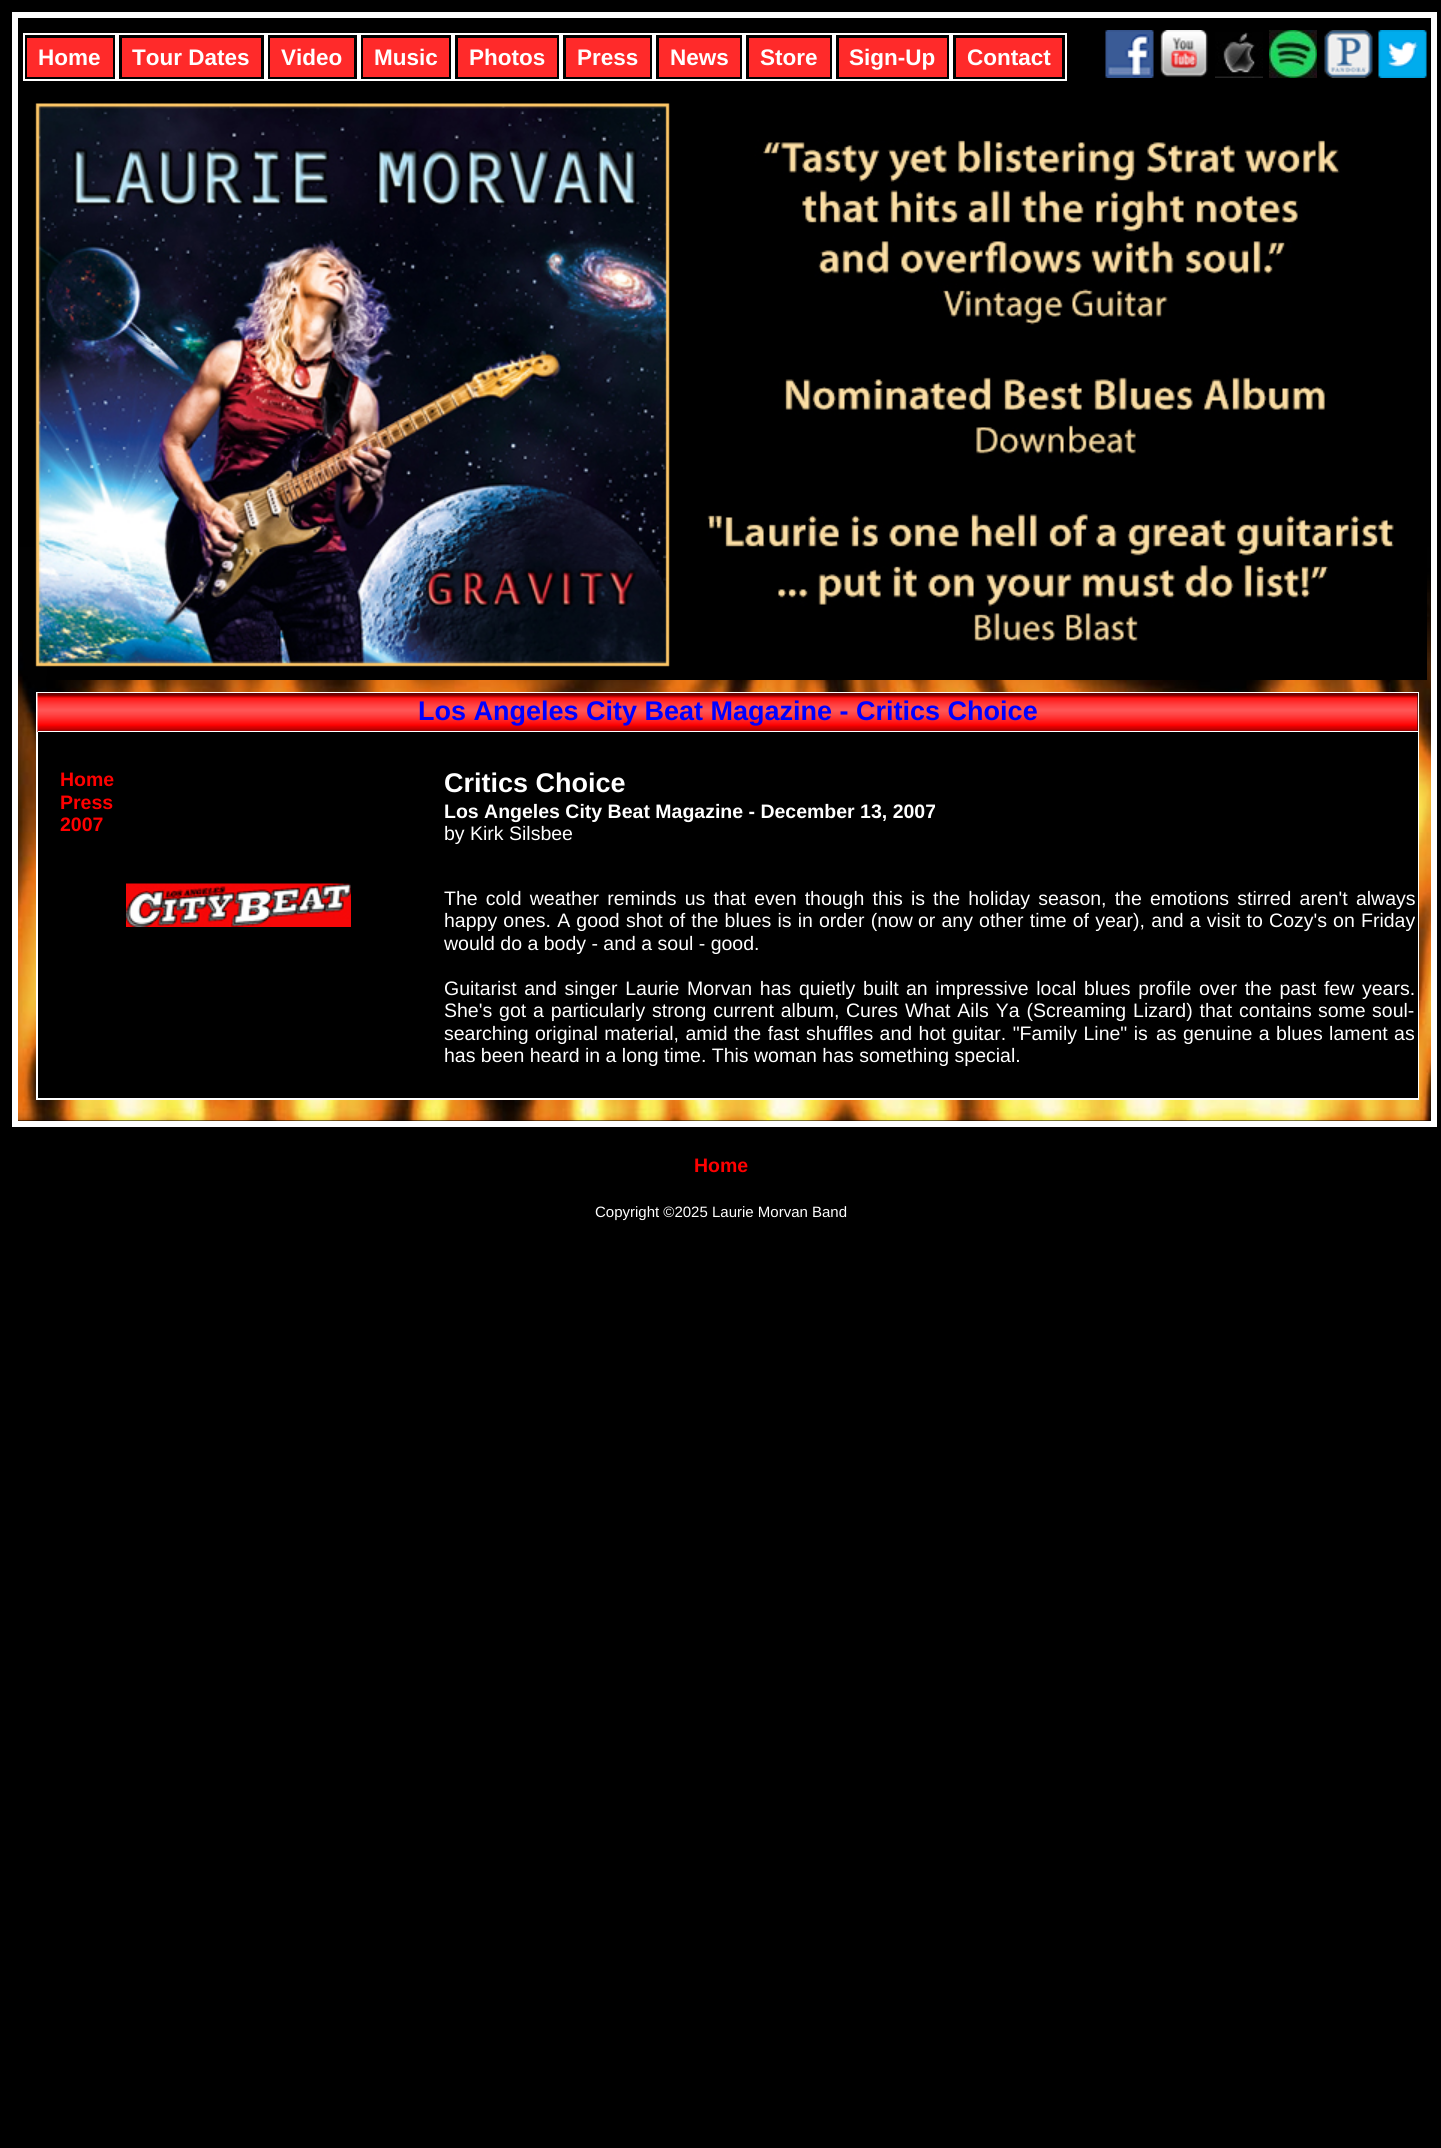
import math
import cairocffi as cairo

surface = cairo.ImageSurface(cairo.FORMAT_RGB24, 1441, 2148)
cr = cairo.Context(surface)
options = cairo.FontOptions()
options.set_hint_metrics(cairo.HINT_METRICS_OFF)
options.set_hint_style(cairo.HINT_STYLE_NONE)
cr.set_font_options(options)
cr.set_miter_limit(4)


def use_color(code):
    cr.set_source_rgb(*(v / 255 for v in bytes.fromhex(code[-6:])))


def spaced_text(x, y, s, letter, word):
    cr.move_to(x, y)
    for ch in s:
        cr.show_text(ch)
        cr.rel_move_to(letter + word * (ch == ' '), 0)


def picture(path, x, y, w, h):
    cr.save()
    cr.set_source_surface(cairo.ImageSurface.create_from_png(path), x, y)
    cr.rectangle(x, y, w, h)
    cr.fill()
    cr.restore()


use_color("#000000")
cr.paint()
picture("img1.png", 18, 547, 1413, 574)
cr.rectangle(15, 15, 1419, 1109)
use_color("#ffffff")
cr.set_line_width(6)
cr.stroke()
cr.rectangle(24, 34, 92, 46)
cr.set_line_width(2)
cr.stroke()
use_color("#ff2a2a")
cr.rectangle(27, 38, 86, 39)
cr.fill()
cr.select_font_face("Liberation Sans", cairo.FONT_SLANT_NORMAL, cairo.FONT_WEIGHT_BOLD)
cr.set_font_size(22.5)
use_color("#ffffff")
cr.move_to(38, 65)
cr.show_text("Home")
cr.rectangle(118, 34, 147, 46)
cr.stroke()
use_color("#ff2a2a")
cr.rectangle(122, 38, 139, 39)
cr.fill()
use_color("#ffffff")
cr.move_to(132, 65)
cr.show_text("Tour Dates")
cr.rectangle(267, 34, 91, 46)
cr.stroke()
use_color("#ff2a2a")
cr.rectangle(270, 38, 84, 39)
cr.fill()
use_color("#ffffff")
cr.move_to(281, 65)
cr.show_text("Video")
cr.rectangle(360, 34, 92, 46)
cr.stroke()
use_color("#ff2a2a")
cr.rectangle(363, 38, 86, 39)
cr.fill()
use_color("#ffffff")
cr.move_to(374, 65)
cr.show_text("Music")
cr.rectangle(454, 34, 106, 46)
cr.stroke()
use_color("#ff2a2a")
cr.rectangle(458, 38, 99, 39)
cr.fill()
use_color("#ffffff")
cr.move_to(469, 65)
cr.show_text("Photos")
cr.rectangle(562, 34, 91, 46)
cr.stroke()
use_color("#ff2a2a")
cr.rectangle(566, 38, 84, 39)
cr.fill()
use_color("#ffffff")
cr.move_to(577, 65)
cr.show_text("Press")
cr.rectangle(655, 34, 88, 46)
cr.stroke()
use_color("#ff2a2a")
cr.rectangle(659, 38, 81, 39)
cr.fill()
use_color("#ffffff")
cr.move_to(670, 65)
cr.show_text("News")
cr.rectangle(745, 34, 88, 46)
cr.stroke()
use_color("#ff2a2a")
cr.rectangle(749, 38, 81, 39)
cr.fill()
use_color("#ffffff")
cr.move_to(760, 65)
cr.show_text("Store")
cr.rectangle(835, 34, 115, 46)
cr.stroke()
use_color("#ff2a2a")
cr.rectangle(839, 38, 108, 39)
cr.fill()
use_color("#ffffff")
cr.move_to(849, 65)
cr.show_text("Sign-Up")
cr.rectangle(952, 34, 114, 46)
cr.stroke()
use_color("#ff2a2a")
cr.rectangle(956, 38, 106, 39)
cr.fill()
use_color("#ffffff")
cr.move_to(967, 65)
cr.show_text("Contact")
picture("img2.png", 1105, 30, 49, 48)
picture("img3.png", 1160, 30, 48, 47)
picture("img4.png", 1215, 32, 48, 46)
picture("img5.png", 1269, 30, 48, 48)
picture("img6.png", 1324, 30, 49, 48)
picture("img7.png", 1378, 30, 49, 48)
use_color("#000000")
cr.rectangle(47, 547, 1380, 133)
cr.fill()
picture("img8.png", 35, 103, 1359, 564)
cr.rectangle(37, 693, 1381, 406)
use_color("#ffffff")
cr.stroke()
use_color("#000000")
cr.rectangle(1417, 693, 1, 38)
cr.fill()
picture("img9.png", 37, 693, 1381, 39)
use_color("#ffffff")
cr.rectangle(38, 731, 1380, 1)
cr.fill()
cr.set_font_size(27)
use_color("#0000ff")
cr.move_to(418, 720)
cr.show_text("Los Angeles City Beat Magazine - Critics Choice")
use_color("#000000")
cr.rectangle(38, 732, 1380, 33)
cr.fill()
cr.rectangle(38, 765, 1380, 86)
cr.fill()
cr.set_font_size(19.5)
use_color("#ff0000")
cr.move_to(60, 786)
cr.show_text("Home")
cr.move_to(60, 809)
cr.show_text("Press")
cr.move_to(60, 831)
cr.show_text("2007")
cr.set_font_size(27)
use_color("#ffffff")
cr.move_to(444, 792)
cr.show_text("Critics Choice")
cr.set_font_size(19.5)
cr.move_to(444, 818)
cr.show_text("Los Angeles City Beat Magazine - December 13, 2007")
cr.select_font_face("Liberation Sans")
cr.move_to(444, 840)
cr.show_text("by Kirk Silsbee")
use_color("#000000")
cr.rectangle(38, 851, 1380, 33)
cr.fill()
cr.rectangle(38, 884, 1380, 214)
cr.fill()
picture("img10.png", 126, 883, 225, 44)
use_color("#ffffff")
spaced_text(444, 905, "The cold weather reminds us that even though this is", 0, 2.75)
spaced_text(933, 905, "the holiday season, the emotions stirred aren't always", 0, 2.75)
spaced_text(444, 927, "happy ones. A good shot of the blues is in order (now", 0, 0.75)
spaced_text(918, 927, "or any other time of year), and a visit to Cozy's on", 0, 0.75)
cr.move_to(1361, 927)
cr.show_text("Friday")
cr.move_to(444, 950)
cr.show_text("would do a body - and a soul - good.")
spaced_text(444, 995, "Guitarist and singer Laurie Morvan has quietly built", 0, 2.25)
spaced_text(906, 995, "an impressive local blues profile over the past few", 0, 2.25)
cr.move_to(1362, 995)
cr.show_text("years.")
spaced_text(444, 1017, "She's got a particularly strong current album,", 0, 1.5)
spaced_text(846, 1017, "Cures What Ails Ya (Screaming Lizard) that contains", 0, 1.5)
spaced_text(1318, 1017, "some soul-", 0, 1)
spaced_text(444, 1040, "searching original material, amid the fast", 0, 1)
spaced_text(806, 1040, "shuffles and hot guitar. \"Family Line\" is", 0, 1)
spaced_text(1156, 1040, "as genuine a blues lament as", 0, 1)
cr.move_to(444, 1062)
cr.show_text("has been heard in a long time. This woman has something special.")
cr.select_font_face("Liberation Sans", cairo.FONT_SLANT_NORMAL, cairo.FONT_WEIGHT_BOLD)
use_color("#ff0000")
cr.move_to(694, 1172)
cr.show_text("Home")
cr.select_font_face("Liberation Sans")
cr.set_font_size(15)
use_color("#ffffff")
cr.move_to(595, 1217)
cr.show_text("Copyright ©2025 Laurie Morvan Band")
surface.write_to_png("result.png")
